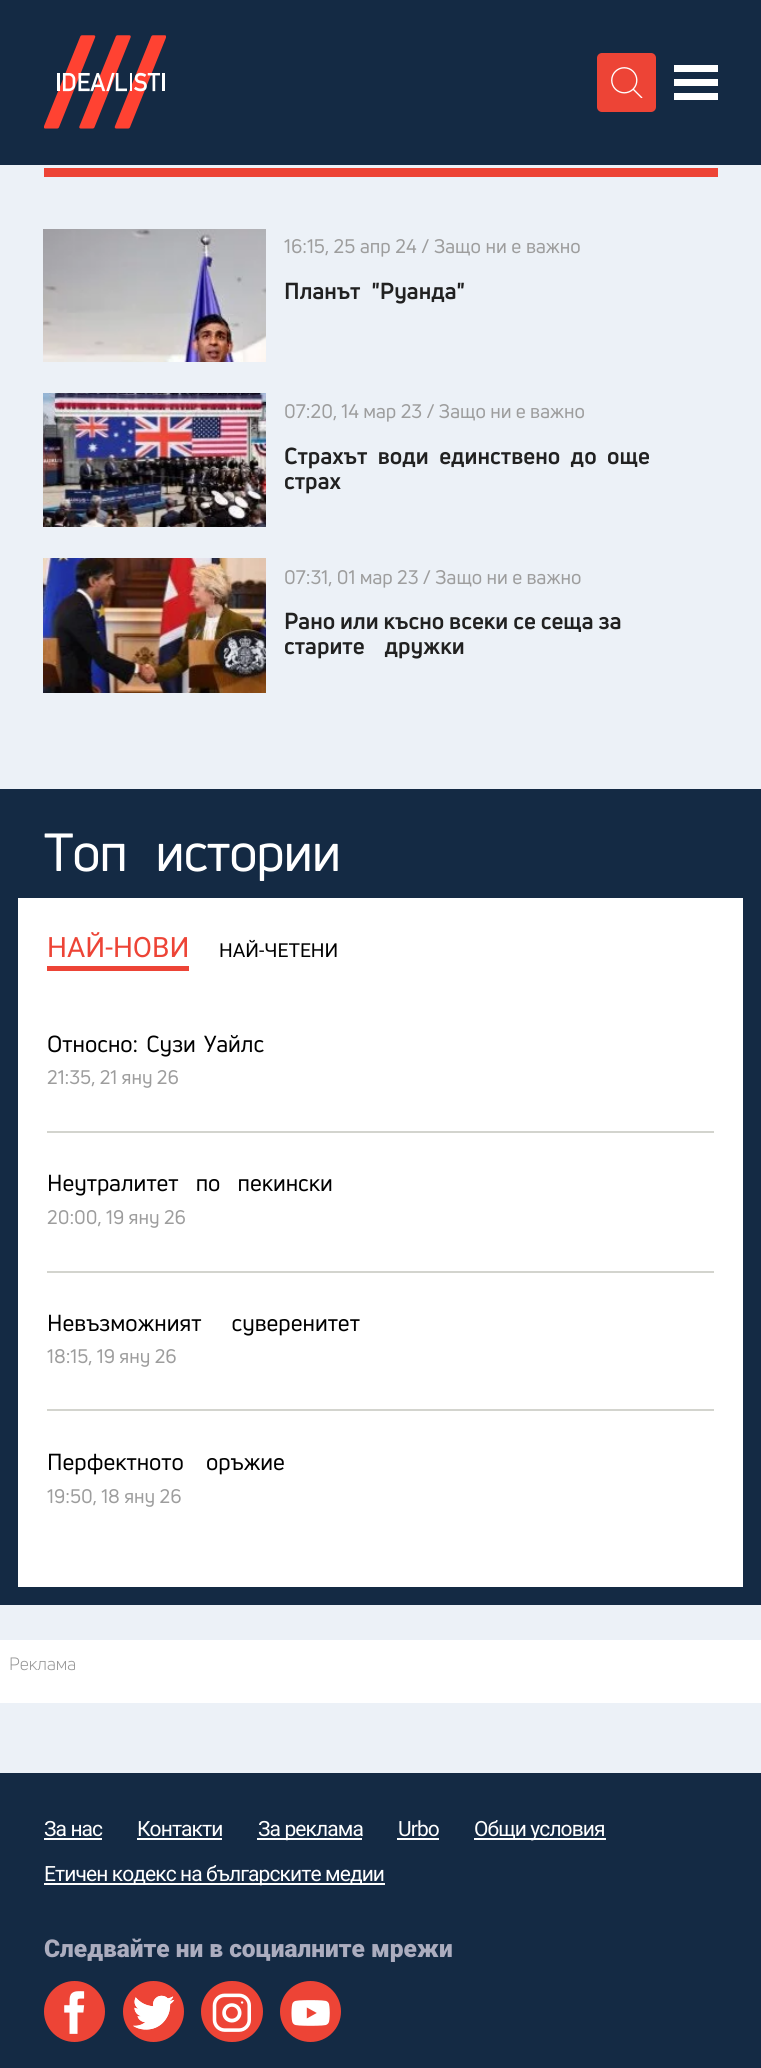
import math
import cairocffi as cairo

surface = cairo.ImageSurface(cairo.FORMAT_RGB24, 761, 2068)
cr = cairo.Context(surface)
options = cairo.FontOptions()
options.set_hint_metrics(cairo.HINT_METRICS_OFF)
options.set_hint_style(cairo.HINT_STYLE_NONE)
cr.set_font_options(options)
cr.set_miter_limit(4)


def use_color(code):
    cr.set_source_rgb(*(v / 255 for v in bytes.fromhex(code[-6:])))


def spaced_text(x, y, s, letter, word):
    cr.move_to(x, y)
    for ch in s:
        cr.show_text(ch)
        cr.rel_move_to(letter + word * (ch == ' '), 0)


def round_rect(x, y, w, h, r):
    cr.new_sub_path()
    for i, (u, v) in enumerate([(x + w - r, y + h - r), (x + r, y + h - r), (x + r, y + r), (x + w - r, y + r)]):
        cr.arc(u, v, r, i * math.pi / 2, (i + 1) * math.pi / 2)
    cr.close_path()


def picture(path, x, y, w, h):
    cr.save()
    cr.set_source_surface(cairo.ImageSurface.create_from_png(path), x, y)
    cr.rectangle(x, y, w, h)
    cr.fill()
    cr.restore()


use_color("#ecf1f7")
cr.paint()
use_color("#142a44")
cr.rectangle(0, 0, 761, 165)
cr.fill()
picture("img1.png", 44, 35, 122, 94)
use_color("#ed4436")
round_rect(597, 53, 59, 59, 5)
cr.fill()
picture("img2.png", 611, 67, 32, 31)
use_color("#ffffff")
cr.rectangle(674, 65, 44, 7)
cr.fill()
cr.rectangle(674, 79, 44, 7)
cr.fill()
cr.rectangle(674, 93, 44, 7)
cr.fill()
use_color("#ed4436")
cr.rectangle(44, 168, 674, 9)
cr.fill()
picture("img3.png", 43, 229, 223, 133)
cr.select_font_face("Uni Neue")
cr.set_font_size(19.25)
use_color("#9d9d9d")
spaced_text(284, 253, "16:15, 25 апр 24 / Защо ни е важно", 0, 0.25)
cr.select_font_face("Uni Neue", cairo.FONT_SLANT_NORMAL, cairo.FONT_WEIGHT_BOLD)
cr.set_font_size(22.75)
use_color("#212121")
spaced_text(284, 299, "Планът \"Руанда\"", 0, 6)
picture("img4.png", 43, 393, 223, 134)
cr.select_font_face("Uni Neue")
cr.set_font_size(19.25)
use_color("#9d9d9d")
cr.move_to(284, 418)
cr.show_text("07:20, 14 мар 23 / Защо ни е важно")
cr.select_font_face("Uni Neue", cairo.FONT_SLANT_NORMAL, cairo.FONT_WEIGHT_BOLD)
cr.set_font_size(22.75)
use_color("#212121")
spaced_text(284, 464, "Страхът води единствено до още", 0, 5.5)
cr.move_to(284, 489)
cr.show_text("страх")
picture("img5.png", 43, 558, 223, 135)
cr.select_font_face("Uni Neue")
cr.set_font_size(19.25)
use_color("#9d9d9d")
cr.move_to(284, 584)
cr.show_text("07:31, 01 мар 23 / Защо ни е важно")
cr.select_font_face("Uni Neue", cairo.FONT_SLANT_NORMAL, cairo.FONT_WEIGHT_BOLD)
cr.set_font_size(22.75)
use_color("#212121")
cr.move_to(284, 629)
cr.show_text("Рано или късно всеки се сеща за")
spaced_text(284, 654, "старите дружки", 0, 15)
use_color("#ffffff")
cr.rectangle(18, 898, 725, 689)
cr.fill()
cr.rectangle(9, 798, 743, 798)
use_color("#142a44")
cr.set_line_width(18)
cr.stroke()
cr.rectangle(18, 807, 725, 91)
cr.fill()
cr.select_font_face("Uni Neue")
cr.set_font_size(52.5)
use_color("#ffffff")
spaced_text(44, 871, "Топ истории", -1.25, 18)
use_color("#ed4436")
cr.rectangle(47, 966, 142, 5)
cr.fill()
cr.select_font_face("Roboto")
cr.set_font_size(28)
cr.move_to(47, 957)
cr.show_text("НАЙ-НОВИ")
cr.set_font_size(19.25)
use_color("#000000")
cr.move_to(219, 957)
cr.show_text("НАЙ-ЧЕТЕНИ")
use_color("#d3d4ce")
cr.rectangle(47, 1131, 667, 2)
cr.fill()
cr.select_font_face("Uni Neue")
cr.set_font_size(22.75)
use_color("#000000")
spaced_text(47, 1052, "Относно: Сузи Уайлс", 0, 3)
cr.set_font_size(19.25)
use_color("#9d9d9d")
cr.move_to(47, 1084)
cr.show_text("21:35, 21 яну 26")
use_color("#d3d4ce")
cr.rectangle(47, 1271, 667, 2)
cr.fill()
cr.set_font_size(22.75)
use_color("#000000")
spaced_text(47, 1191, "Неутралитет по пекински", 0, 12)
cr.set_font_size(19.25)
use_color("#9d9d9d")
cr.move_to(47, 1224)
cr.show_text("20:00, 19 яну 26")
use_color("#d3d4ce")
cr.rectangle(47, 1409, 667, 2)
cr.fill()
cr.set_font_size(22.75)
use_color("#000000")
spaced_text(47, 1331, "Невъзможният суверенитет", 0, 25)
cr.set_font_size(19.25)
use_color("#9d9d9d")
cr.move_to(47, 1363)
cr.show_text("18:15, 19 яну 26")
cr.set_font_size(22.75)
use_color("#000000")
spaced_text(47, 1470, "Перфектното оръжие", 0, 17)
cr.set_font_size(19.25)
use_color("#9d9d9d")
cr.move_to(47, 1503)
cr.show_text("19:50, 18 яну 26")
use_color("#ffffff")
cr.rectangle(0, 1640, 761, 63)
cr.fill()
cr.select_font_face("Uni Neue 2")
cr.set_font_size(17.5)
use_color("#949494")
cr.move_to(9, 1670)
cr.show_text("Реклама")
use_color("#142a44")
cr.rectangle(0, 1773, 761, 295)
cr.fill()
cr.select_font_face("Roboto")
cr.set_font_size(21)
use_color("#ffffff")
spaced_text(44, 1836, "За нас", -0.9, 0)
cr.rectangle(44, 1838, 58, 2)
cr.fill()
spaced_text(137, 1836, "Контакти", -0.9, 0)
cr.rectangle(137, 1838, 85, 2)
cr.fill()
cr.rectangle(257, 1838, 105, 2)
cr.fill()
spaced_text(258, 1836, "За реклама", -0.9, 0)
spaced_text(398, 1836, "Urbo", -0.9, 0)
cr.rectangle(397, 1838, 42, 2)
cr.fill()
cr.rectangle(474, 1838, 132, 2)
cr.fill()
spaced_text(474, 1836, "Общи условия", -0.9, 0)
cr.rectangle(44, 1883, 341, 2)
cr.fill()
spaced_text(44, 1881, "Етичен кодекс на българските медии", -0.9, 0)
cr.select_font_face("Roboto Black")
cr.set_font_size(24.5)
use_color("#acadbf")
cr.move_to(44, 1957)
cr.show_text("Следвайте ни в социалните мрежи")
use_color("#ed4436")
cr.new_path()
cr.arc(74.5, 2011.5, 30.5, 0, 2 * math.pi)
cr.fill()
picture("img6.png", 64, 1991, 21, 43)
cr.arc(153.5, 2011.5, 30.5, 0, 2 * math.pi)
cr.fill()
picture("img7.png", 133, 1995, 42, 35)
round_rect(201, 1981, 62, 61, 30.5)
cr.fill()
picture("img8.png", 212, 1993, 39, 39)
cr.arc(310.5, 2011.5, 30.5, 0, 2 * math.pi)
cr.fill()
picture("img9.png", 291, 2000, 39, 26)
surface.write_to_png("result.png")
